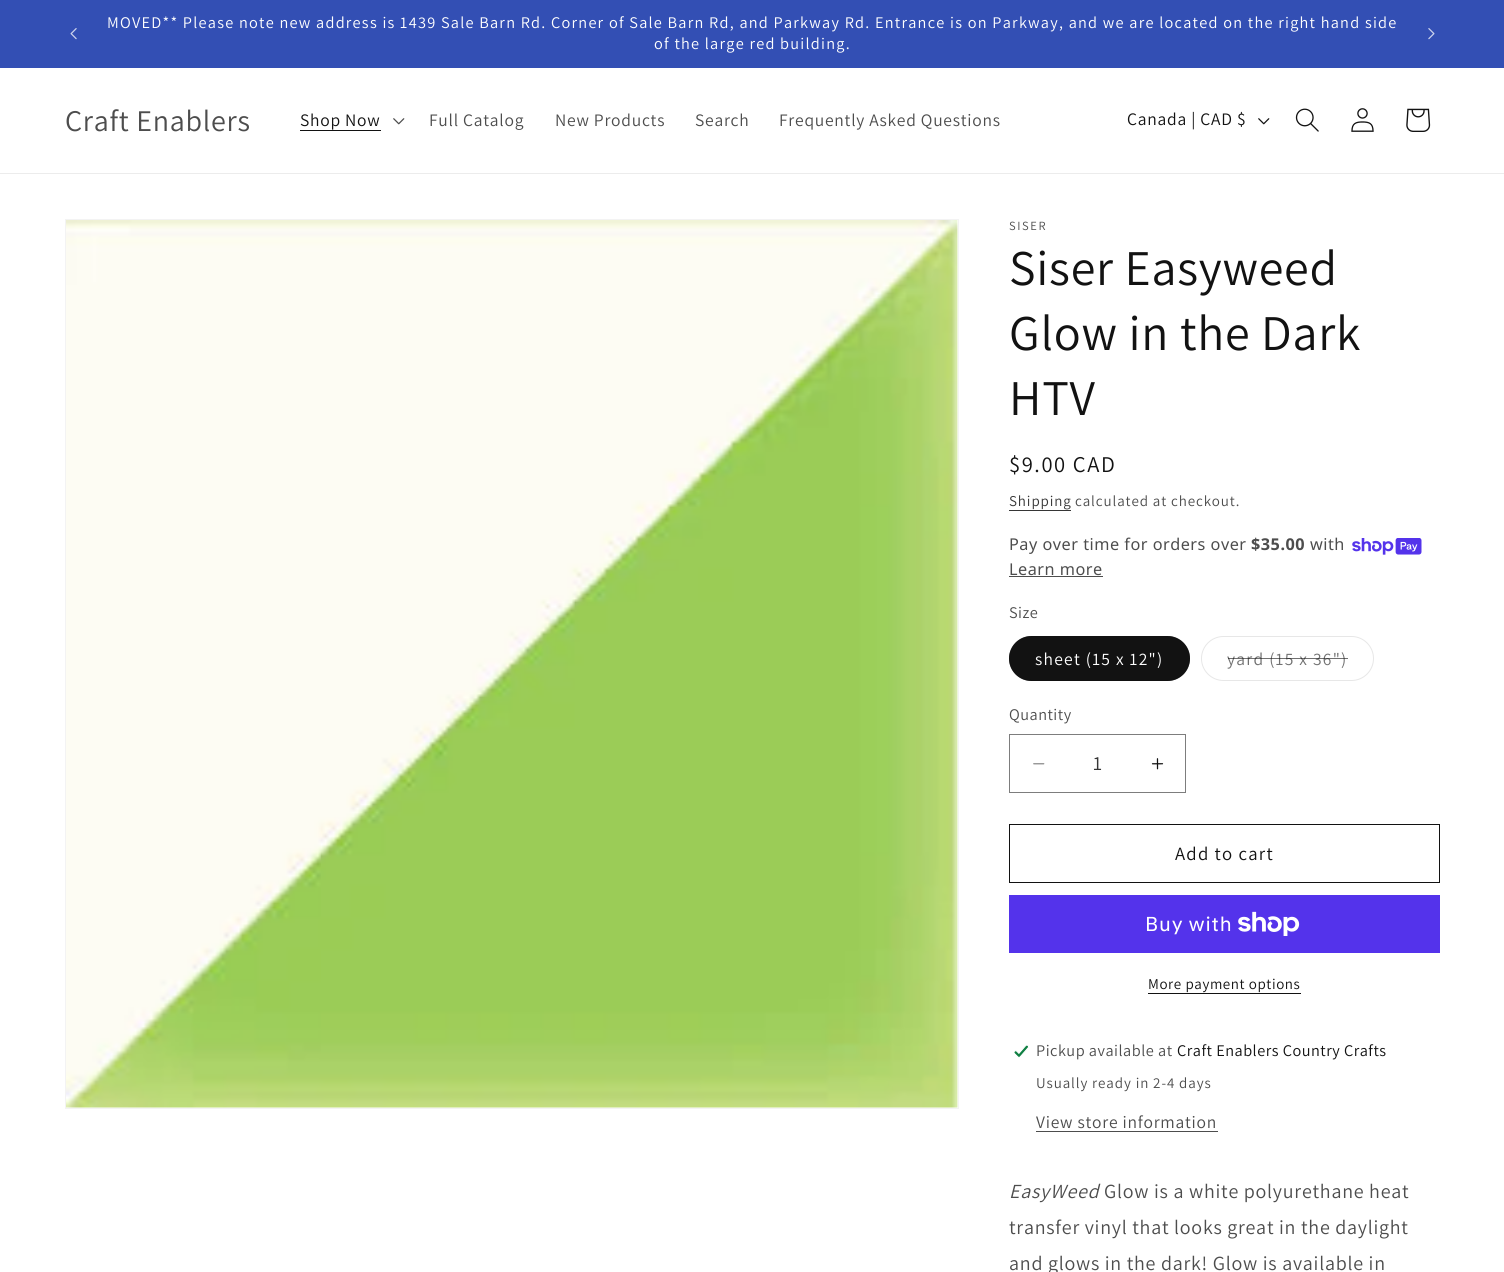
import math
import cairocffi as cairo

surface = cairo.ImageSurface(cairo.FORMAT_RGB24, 1504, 1272)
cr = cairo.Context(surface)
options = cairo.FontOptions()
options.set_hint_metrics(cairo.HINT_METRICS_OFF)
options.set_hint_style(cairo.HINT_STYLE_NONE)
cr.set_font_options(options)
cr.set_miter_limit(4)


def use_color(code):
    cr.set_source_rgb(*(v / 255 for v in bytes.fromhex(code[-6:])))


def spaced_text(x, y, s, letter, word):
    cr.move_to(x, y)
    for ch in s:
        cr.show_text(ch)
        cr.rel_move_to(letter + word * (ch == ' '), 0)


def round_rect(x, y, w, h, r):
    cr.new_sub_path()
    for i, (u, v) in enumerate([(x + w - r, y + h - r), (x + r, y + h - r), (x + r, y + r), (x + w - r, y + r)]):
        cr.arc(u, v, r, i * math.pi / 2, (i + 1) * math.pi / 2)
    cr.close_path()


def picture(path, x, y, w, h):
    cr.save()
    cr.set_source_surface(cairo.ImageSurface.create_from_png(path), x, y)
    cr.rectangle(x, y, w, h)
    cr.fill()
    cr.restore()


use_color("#ffffff")
cr.paint()
use_color("#334fb4")
cr.rectangle(0, 0, 1504, 68)
cr.fill()
picture("img1.png", 70, 28, 7, 12)
cr.select_font_face("Assistant")
cr.set_font_size(16.25)
use_color("#ffffff")
spaced_text(107, 28, "MOVED** Please note new address is 1439 Sale Barn Rd. Corner of Sale Barn Rd, and Parkway Rd. Entrance is on Parkway, and we are located on the right hand side", 1.25, 0)
spaced_text(654, 49, "of the large red building.", 1.25, 0)
picture("img2.png", 1428, 28, 7, 12)
use_color("#ececec")
cr.rectangle(0, 173, 1504, 1)
cr.fill()
cr.set_font_size(30)
use_color("#4d4d4d")
spaced_text(65, 131, "Craft Enablers", 0.75, 0)
cr.set_font_size(17.5)
use_color("#121212")
spaced_text(300, 126, "Shop Now", 0.75, 0)
cr.rectangle(300, 130, 81, 1)
cr.fill()
picture("img3.png", 393, 118, 12, 7)
use_color("#4d4d4d")
spaced_text(429, 126, "Full Catalog", 0.75, 0)
spaced_text(555, 126, "New Products", 0.75, 0)
spaced_text(695, 126, "Search", 0.75, 0)
spaced_text(779, 126, "Frequently Asked Questions", 0.75, 0)
use_color("#121212")
spaced_text(1127, 125, "Canada | CAD $", 0.75, 0)
picture("img4.png", 1258, 118, 12, 7)
picture("img5.png", 1295, 108, 24, 24)
picture("img6.png", 1351, 108, 23, 24)
picture("img7.png", 1406, 108, 25, 24)
cr.rectangle(65.5, 219.5, 893, 889)
use_color("#f3f3f3")
cr.set_line_width(1)
cr.stroke()
picture("img8.png", 66, 220, 892, 888)
cr.set_font_size(12.5)
use_color("#4d4d4d")
spaced_text(1009, 230, "SISER", 1.6, 0)
cr.set_font_size(50)
use_color("#121212")
spaced_text(1009, 285, "Siser Easyweed", 0.75, 0)
spaced_text(1009, 350, "Glow in the Dark", 0.75, 0)
spaced_text(1009, 415, "HTV", 0.75, 0)
cr.set_font_size(22.5)
spaced_text(1009, 472, "$9.00 CAD", 1.6, 0)
cr.set_font_size(15)
use_color("#363636")
spaced_text(1009, 506, "Shipping", 0.9, 0)
cr.rectangle(1009, 510, 62, 1)
cr.fill()
use_color("#4d4d4d")
spaced_text(1075, 506, "calculated at checkout.", 0.9, 0)
cr.select_font_face("Noto Sans")
cr.set_font_size(16.25)
spaced_text(1009, 550, "Pay over time for orders over", 0.5, 0)
cr.select_font_face("Noto Sans", cairo.FONT_SLANT_NORMAL, cairo.FONT_WEIGHT_BOLD)
spaced_text(1251, 550, "$35.00", 0.5, 0)
cr.select_font_face("Noto Sans")
spaced_text(1310, 550, "with", 0.5, 0)
picture("img9.png", 1352, 538, 70, 17)
spaced_text(1009, 575, "Learn more", 0.5, 0)
cr.rectangle(1009, 576, 94, 1)
cr.fill()
cr.select_font_face("Assistant")
spaced_text(1009, 618, "Size", 0.5, 0)
use_color("#121212")
round_rect(1009, 636, 181, 45, 22.5)
cr.fill()
round_rect(1009.5, 636.5, 180, 44, 22)
cr.set_source_rgba(0.071, 0.071, 0.071, 0.55)
cr.stroke()
cr.set_font_size(17.5)
use_color("#ffffff")
spaced_text(1035, 665, "sheet (15 x 12\")", 1.25, 0)
round_rect(1201.5, 636.5, 172, 44, 22)
use_color("#e7e7e7")
cr.stroke()
use_color("#717171")
spaced_text(1227, 665, "yard (15 x 36\")", 1.25, 0)
cr.set_source_rgba(0.071, 0.071, 0.071, 0.6)
cr.rectangle(1228, 658, 120, 1)
cr.fill()
cr.set_font_size(16.25)
use_color("#4d4d4d")
spaced_text(1009, 720, "Quantity", 0.5, 0)
picture("img10.png", 1033, 763, 12, 2)
picture("img11.png", 1151, 758, 13, 12)
cr.rectangle(1009.5, 734.5, 176, 58)
use_color("#7d7d7d")
cr.stroke()
cr.set_font_size(20)
use_color("#363636")
cr.move_to(1093, 770)
cr.show_text("1")
cr.rectangle(1009.5, 824.5, 430, 58)
use_color("#121212")
cr.stroke()
cr.set_font_size(18.75)
spaced_text(1175, 860, "Add to cart", 1.25, 0)
use_color("#5433eb")
cr.rectangle(1009, 895, 431, 58)
cr.fill()
cr.select_font_face("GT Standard")
cr.set_font_size(20)
use_color("#ffffff")
spaced_text(1145, 931, "Buy with", 0.75, 0)
picture("img12.png", 1238, 911, 62, 25)
cr.select_font_face("Assistant")
cr.set_font_size(15)
use_color("#121212")
spaced_text(1148, 989, "More payment options", 0.6, 0)
cr.rectangle(1148, 993, 153, 1)
cr.fill()
picture("img13.png", 1014, 1045, 15, 13)
cr.set_font_size(16.25)
use_color("#4d4d4d")
spaced_text(1036, 1056, "Pickup available at", 0.5, 0)
use_color("#121212")
spaced_text(1177, 1056, "Craft Enablers Country Crafts", 0.5, 0)
cr.set_font_size(15)
use_color("#4d4d4d")
spaced_text(1036, 1088, "Usually ready in 2-4 days", 0.9, 0)
cr.set_font_size(17.5)
spaced_text(1036, 1128, "View store information", 0.75, 0)
cr.rectangle(1036, 1131, 182, 1)
cr.fill()
cr.select_font_face("Assistant", cairo.FONT_SLANT_ITALIC)
cr.set_font_size(20)
spaced_text(1009, 1198, "EasyWeed", 0.75, 0)
cr.select_font_face("Assistant")
spaced_text(1104, 1198, "Glow is a white polyurethane heat", 0.75, 0)
spaced_text(1009, 1234, "transfer vinyl that looks great in the daylight", 0.75, 0)
spaced_text(1009, 1270, "and glows in the dark! Glow is available in", 0.75, 0)
surface.write_to_png("result.png")
